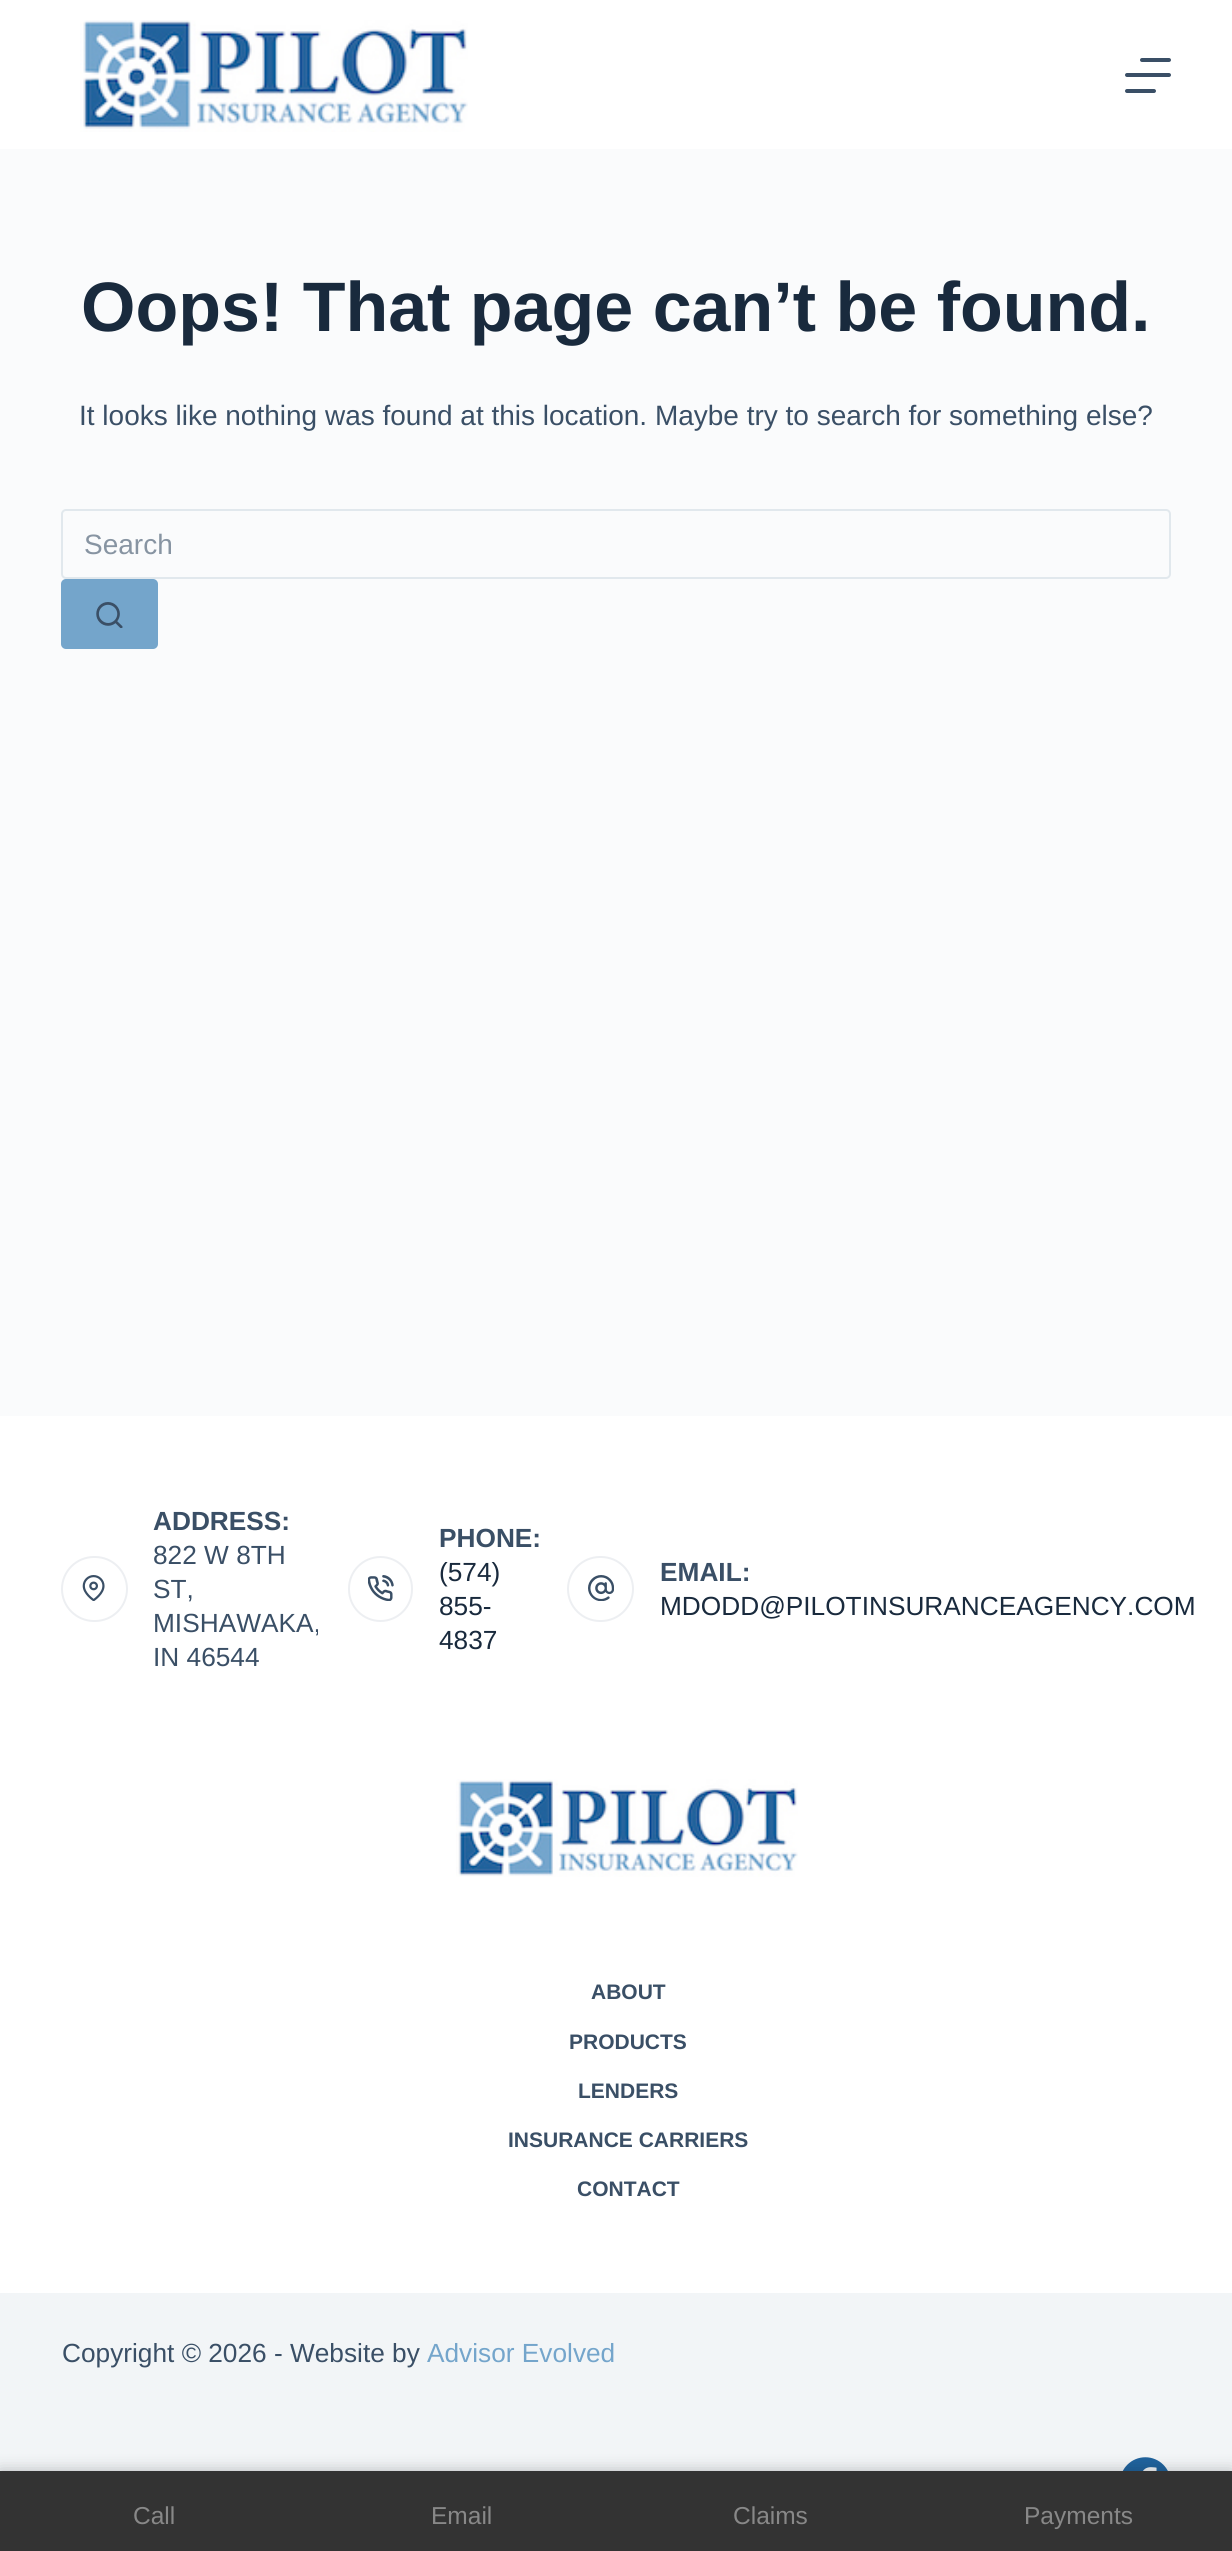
import math
import cairocffi as cairo

surface = cairo.ImageSurface(cairo.FORMAT_RGB24, 1232, 2551)
cr = cairo.Context(surface)
options = cairo.FontOptions()
options.set_hint_metrics(cairo.HINT_METRICS_OFF)
options.set_hint_style(cairo.HINT_STYLE_NONE)
cr.set_font_options(options)
cr.set_miter_limit(4)


def use_color(code):
    cr.set_source_rgb(*(v / 255 for v in bytes.fromhex(code[-6:])))


def round_rect(x, y, w, h, r):
    cr.new_sub_path()
    for i, (u, v) in enumerate([(x + w - r, y + h - r), (x + r, y + h - r), (x + r, y + r), (x + w - r, y + r)]):
        cr.arc(u, v, r, i * math.pi / 2, (i + 1) * math.pi / 2)
    cr.close_path()


def shadow(x, y, w, h, r, blur, alpha):
    cr.push_group_with_content(cairo.CONTENT_ALPHA)
    cr.set_operator(cairo.OPERATOR_SOURCE)
    for i in range(15, -16, -2):
        e = blur * i / 6
        if min(w, h) + 2 * e > 0:
            cr.set_source_rgba(0, 0, 0, alpha * math.erfc((i - 1) / 8.5) / 2)
            round_rect(x - e, y - e, w + 2 * e, h + 2 * e, max(0, min(r + e + blur * .6, min(w, h) / 2 + e)))
            cr.fill()
    cr.mask(cr.pop_group())


def picture(path, x, y, w, h):
    cr.save()
    cr.set_source_surface(cairo.ImageSurface.create_from_png(path), x, y)
    cr.rectangle(x, y, w, h)
    cr.fill()
    cr.restore()


use_color("#fafbfc")
cr.paint()
use_color("#ffffff")
cr.rectangle(0, 0, 1232, 149)
cr.fill()
picture("img1.png", 80, 20, 388, 112)
use_color("#3a4f66")
round_rect(1140, 58, 31, 4, 2)
cr.fill()
round_rect(1125, 73, 46, 4, 2)
cr.fill()
round_rect(1125, 89, 31, 4, 2)
cr.fill()
cr.select_font_face("Liberation Sans", cairo.FONT_SLANT_NORMAL, cairo.FONT_WEIGHT_BOLD)
cr.set_font_size(70)
use_color("#192a3d")
cr.move_to(81, 331)
cr.show_text("Oops! That page can’t be found.")
cr.select_font_face("Liberation Sans")
cr.set_font_size(28)
use_color("#3a4f66")
cr.move_to(79, 425)
cr.show_text("It looks like nothing was found at this location. Maybe try to search for something else?")
round_rect(62, 510, 1108, 68, 4)
use_color("#e1e8ed")
cr.stroke()
use_color("#8794a2")
cr.move_to(84, 554)
cr.show_text("Search")
use_color("#74a5cb")
round_rect(61, 579, 97, 70, 5)
cr.fill()
picture("img2.png", 96, 602, 27, 26)
use_color("#f2f5f7")
cr.rectangle(0, 2293, 1232, 178)
cr.fill()
use_color("#ffffff")
cr.rectangle(0, 1416, 1232, 877)
cr.fill()
round_rect(62, 1557, 65, 64, 32)
use_color("#edeff2")
cr.stroke()
picture("img3.png", 82, 1575, 23, 26)
cr.select_font_face("Liberation Sans", cairo.FONT_SLANT_NORMAL, cairo.FONT_WEIGHT_BOLD)
cr.set_font_size(26.25)
use_color("#3a4f66")
cr.move_to(153, 1530)
cr.show_text("ADDRESS:")
cr.select_font_face("Liberation Sans")
cr.move_to(153, 1564)
cr.show_text("822 W 8TH")
cr.move_to(153, 1598)
cr.show_text("ST,")
cr.move_to(153, 1632)
cr.show_text("MISHAWAKA,")
cr.move_to(153, 1666)
cr.show_text("IN 46544")
round_rect(349, 1557, 63, 64, 31.5)
use_color("#edeff2")
cr.stroke()
picture("img4.png", 368, 1575, 26, 26)
cr.select_font_face("Liberation Sans", cairo.FONT_SLANT_NORMAL, cairo.FONT_WEIGHT_BOLD)
use_color("#3a4f66")
cr.move_to(439, 1547)
cr.show_text("PHONE:")
cr.select_font_face("Liberation Sans")
use_color("#192a3d")
cr.move_to(439, 1581)
cr.show_text("(574)")
cr.move_to(439, 1615)
cr.show_text("855-")
cr.move_to(439, 1649)
cr.show_text("4837")
round_rect(568, 1557, 65, 64, 32)
use_color("#edeff2")
cr.stroke()
picture("img5.png", 588, 1575, 26, 26)
cr.select_font_face("Liberation Sans", cairo.FONT_SLANT_NORMAL, cairo.FONT_WEIGHT_BOLD)
use_color("#3a4f66")
cr.move_to(660, 1581)
cr.show_text("EMAIL:")
cr.select_font_face("Liberation Sans")
use_color("#192a3d")
cr.move_to(660, 1615)
cr.show_text("MDODD@PILOTINSURANCEAGENCY.COM")
picture("img6.png", 456, 1779, 342, 98)
cr.select_font_face("Liberation Sans", cairo.FONT_SLANT_NORMAL, cairo.FONT_WEIGHT_BOLD)
cr.set_font_size(21)
use_color("#3a4f66")
cr.move_to(591, 1999)
cr.show_text("ABOUT")
cr.move_to(569, 2049)
cr.show_text("PRODUCTS")
cr.move_to(578, 2098)
cr.show_text("LENDERS")
cr.move_to(508, 2147)
cr.show_text("INSURANCE CARRIERS")
cr.move_to(577, 2196)
cr.show_text("CONTACT")
cr.select_font_face("Liberation Sans")
cr.set_font_size(26.25)
cr.move_to(62, 2362)
cr.show_text("Copyright © 2026 - Website by")
use_color("#74a5cb")
cr.move_to(427, 2362)
cr.show_text("Advisor Evolved")
picture("img7.png", 1122, 2457, 46, 14)
use_color("#000000")
shadow(0, 2471, 1232, 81, 0, 8, 0.25)
use_color("#333333")
cr.rectangle(0, 2471, 1232, 80)
cr.fill()
cr.set_font_size(24.5)
use_color("#888888")
cr.move_to(133, 2524)
cr.show_text("Call")
cr.move_to(431, 2524)
cr.show_text("Email")
cr.move_to(733, 2524)
cr.show_text("Claims")
cr.move_to(1024, 2524)
cr.show_text("Payments")
surface.write_to_png("result.png")
